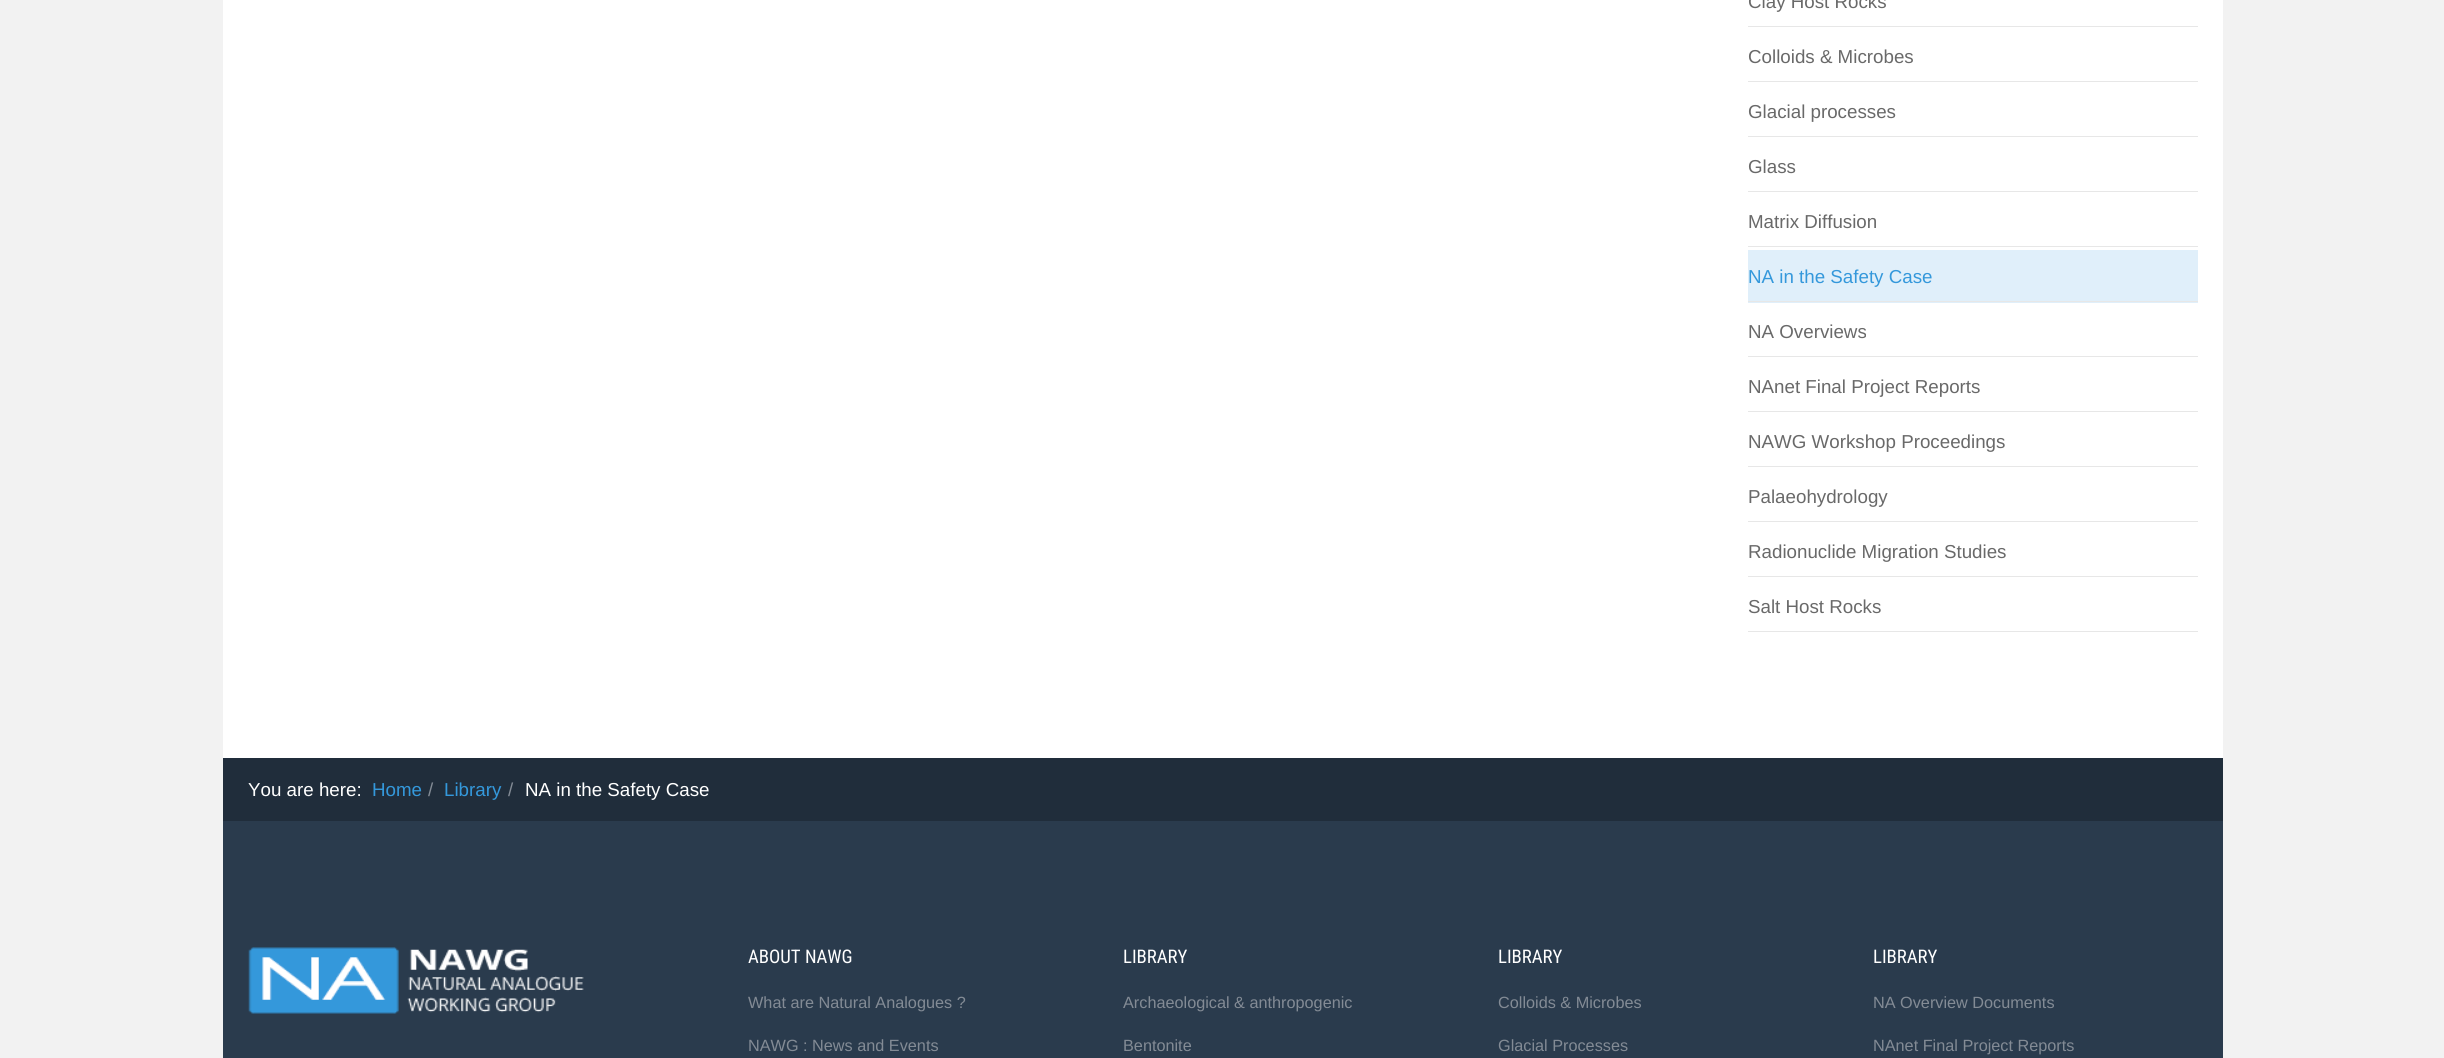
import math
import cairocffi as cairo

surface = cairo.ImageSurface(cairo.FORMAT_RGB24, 2444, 1058)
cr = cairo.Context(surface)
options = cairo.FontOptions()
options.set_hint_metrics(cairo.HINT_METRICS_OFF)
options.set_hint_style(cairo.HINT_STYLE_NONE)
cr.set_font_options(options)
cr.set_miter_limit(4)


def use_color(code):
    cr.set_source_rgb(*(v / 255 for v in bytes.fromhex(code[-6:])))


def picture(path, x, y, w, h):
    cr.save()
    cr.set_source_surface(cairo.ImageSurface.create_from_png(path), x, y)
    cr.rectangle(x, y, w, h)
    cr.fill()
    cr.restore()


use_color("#f2f2f2")
cr.paint()
use_color("#ffffff")
cr.rectangle(223, 0, 2000, 758)
cr.fill()
use_color("#e7e7e7")
cr.rectangle(1748, 26, 450, 1)
cr.fill()
cr.select_font_face("Liberation Sans")
cr.set_font_size(18.75)
use_color("#696969")
cr.move_to(1748, 8)
cr.show_text("Clay Host Rocks")
use_color("#e7e7e7")
cr.rectangle(1748, 81, 450, 1)
cr.fill()
use_color("#696969")
cr.move_to(1748, 63)
cr.show_text("Colloids & Microbes")
use_color("#e7e7e7")
cr.rectangle(1748, 136, 450, 1)
cr.fill()
use_color("#696969")
cr.move_to(1748, 118)
cr.show_text("Glacial processes")
use_color("#e7e7e7")
cr.rectangle(1748, 191, 450, 1)
cr.fill()
use_color("#696969")
cr.move_to(1748, 173)
cr.show_text("Glass")
use_color("#e7e7e7")
cr.rectangle(1748, 246, 450, 1)
cr.fill()
use_color("#696969")
cr.move_to(1748, 228)
cr.show_text("Matrix Diffusion")
use_color("#e0effa")
cr.rectangle(1748, 250, 450, 53)
cr.fill()
use_color("#e7e7e7")
cr.rectangle(1748, 301, 450, 1)
cr.fill()
use_color("#3498db")
cr.move_to(1748, 283)
cr.show_text("NA in the Safety Case")
use_color("#e7e7e7")
cr.rectangle(1748, 356, 450, 1)
cr.fill()
use_color("#696969")
cr.move_to(1748, 338)
cr.show_text("NA Overviews")
use_color("#e7e7e7")
cr.rectangle(1748, 411, 450, 1)
cr.fill()
use_color("#696969")
cr.move_to(1748, 393)
cr.show_text("NAnet Final Project Reports")
use_color("#e7e7e7")
cr.rectangle(1748, 466, 450, 1)
cr.fill()
use_color("#696969")
cr.move_to(1748, 448)
cr.show_text("NAWG Workshop Proceedings")
use_color("#e7e7e7")
cr.rectangle(1748, 521, 450, 1)
cr.fill()
use_color("#696969")
cr.move_to(1748, 503)
cr.show_text("Palaeohydrology")
use_color("#e7e7e7")
cr.rectangle(1748, 576, 450, 1)
cr.fill()
use_color("#696969")
cr.move_to(1748, 558)
cr.show_text("Radionuclide Migration Studies")
use_color("#e7e7e7")
cr.rectangle(1748, 631, 450, 1)
cr.fill()
use_color("#696969")
cr.move_to(1748, 613)
cr.show_text("Salt Host Rocks")
use_color("#202d3b")
cr.rectangle(223, 758, 2000, 63)
cr.fill()
use_color("#ffffff")
cr.move_to(248, 796)
cr.show_text("You are here:")
use_color("#3498db")
cr.move_to(372, 796)
cr.show_text("Home")
use_color("#838b95")
cr.move_to(428, 796)
cr.show_text("/")
use_color("#3498db")
cr.move_to(444, 796)
cr.show_text("Library")
use_color("#838b95")
cr.move_to(508, 796)
cr.show_text("/")
use_color("#ffffff")
cr.move_to(525, 796)
cr.show_text("NA in the Safety Case")
use_color("#2a3b4d")
cr.rectangle(223, 821, 2000, 237)
cr.fill()
picture("img1.png", 248, 947, 336, 67)
cr.select_font_face("Roboto Condensed")
use_color("#ffffff")
cr.move_to(748, 963)
cr.show_text("ABOUT NAWG")
cr.select_font_face("Liberation Sans")
cr.set_font_size(16.25)
use_color("#838b95")
cr.move_to(748, 1008)
cr.show_text("What are Natural Analogues ?")
cr.move_to(748, 1051)
cr.show_text("NAWG : News and Events")
cr.select_font_face("Roboto Condensed")
cr.set_font_size(18.75)
use_color("#ffffff")
cr.move_to(1123, 963)
cr.show_text("LIBRARY")
cr.select_font_face("Liberation Sans")
cr.set_font_size(16.25)
use_color("#838b95")
cr.move_to(1123, 1008)
cr.show_text("Archaeological & anthropogenic")
cr.move_to(1123, 1051)
cr.show_text("Bentonite")
cr.select_font_face("Roboto Condensed")
cr.set_font_size(18.75)
use_color("#ffffff")
cr.move_to(1498, 963)
cr.show_text("LIBRARY")
cr.select_font_face("Liberation Sans")
cr.set_font_size(16.25)
use_color("#838b95")
cr.move_to(1498, 1008)
cr.show_text("Colloids & Microbes")
cr.move_to(1498, 1051)
cr.show_text("Glacial Processes")
cr.select_font_face("Roboto Condensed")
cr.set_font_size(18.75)
use_color("#ffffff")
cr.move_to(1873, 963)
cr.show_text("LIBRARY")
cr.select_font_face("Liberation Sans")
cr.set_font_size(16.25)
use_color("#838b95")
cr.move_to(1873, 1008)
cr.show_text("NA Overview Documents")
cr.move_to(1873, 1051)
cr.show_text("NAnet Final Project Reports")
surface.write_to_png("result.png")
